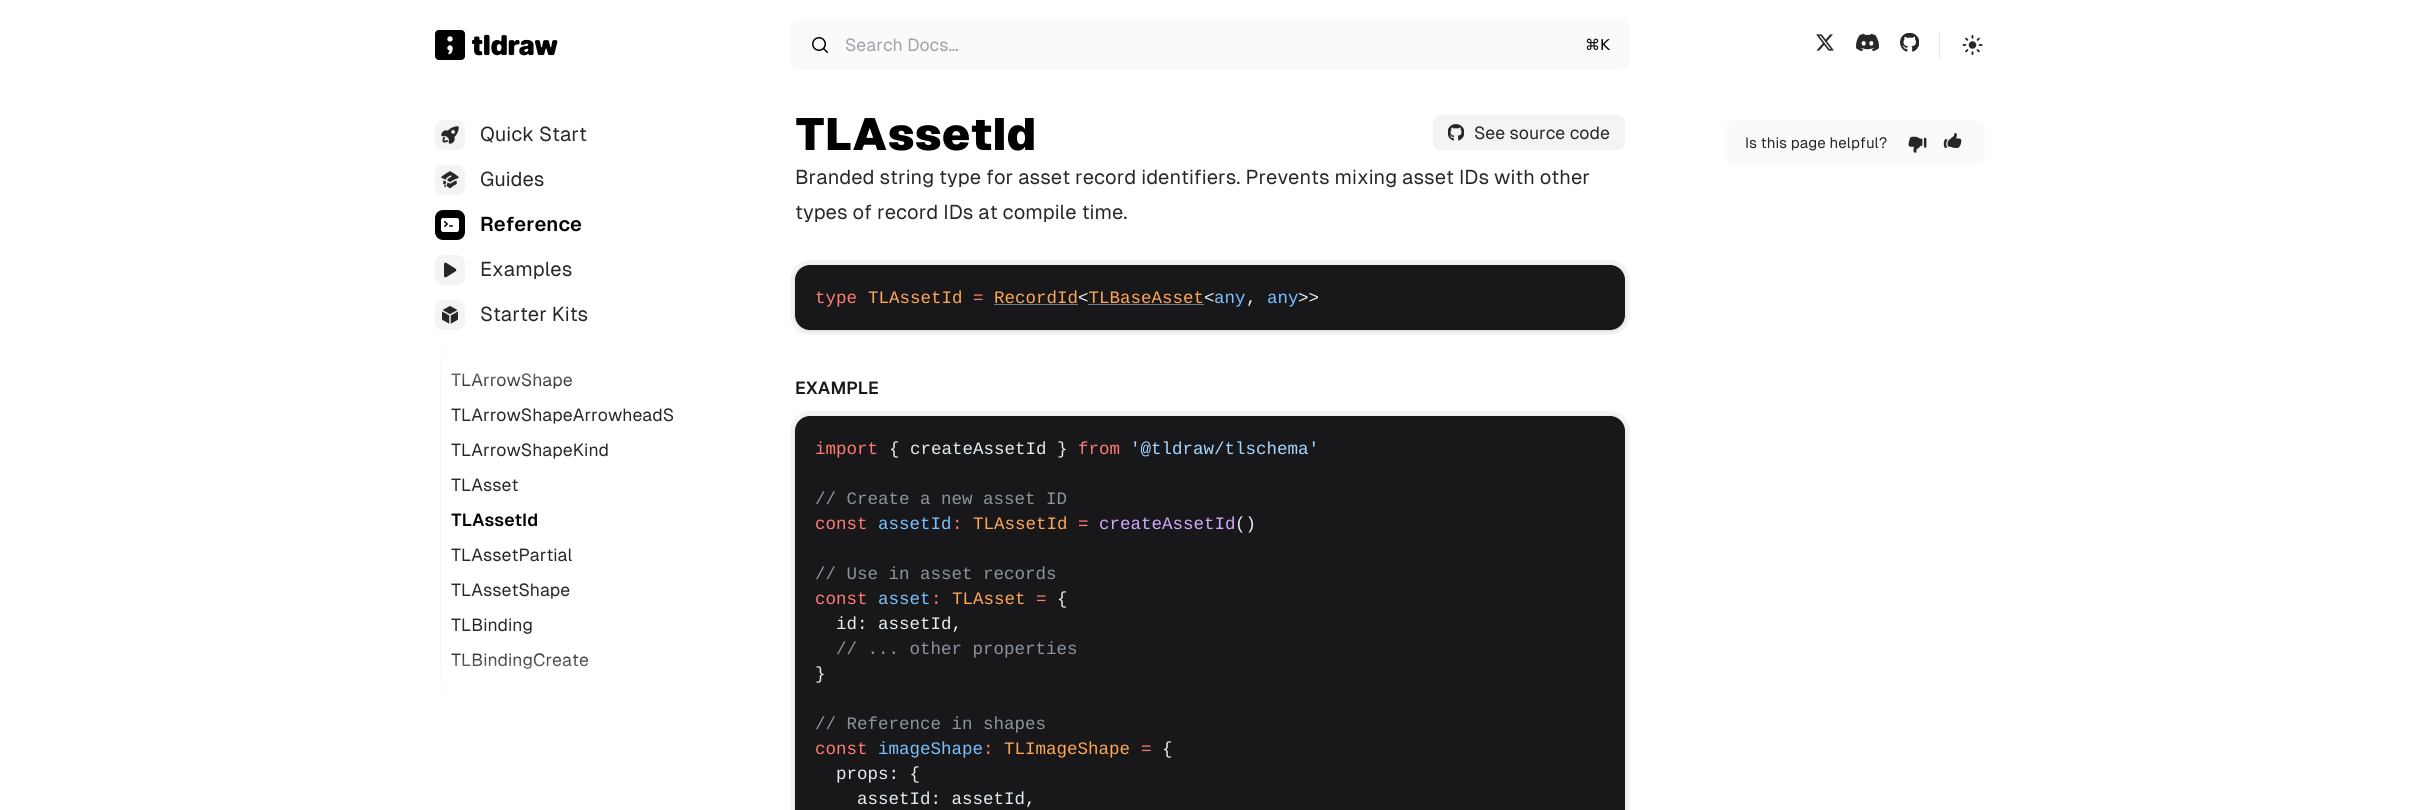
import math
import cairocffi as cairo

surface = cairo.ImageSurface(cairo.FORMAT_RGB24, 2420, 810)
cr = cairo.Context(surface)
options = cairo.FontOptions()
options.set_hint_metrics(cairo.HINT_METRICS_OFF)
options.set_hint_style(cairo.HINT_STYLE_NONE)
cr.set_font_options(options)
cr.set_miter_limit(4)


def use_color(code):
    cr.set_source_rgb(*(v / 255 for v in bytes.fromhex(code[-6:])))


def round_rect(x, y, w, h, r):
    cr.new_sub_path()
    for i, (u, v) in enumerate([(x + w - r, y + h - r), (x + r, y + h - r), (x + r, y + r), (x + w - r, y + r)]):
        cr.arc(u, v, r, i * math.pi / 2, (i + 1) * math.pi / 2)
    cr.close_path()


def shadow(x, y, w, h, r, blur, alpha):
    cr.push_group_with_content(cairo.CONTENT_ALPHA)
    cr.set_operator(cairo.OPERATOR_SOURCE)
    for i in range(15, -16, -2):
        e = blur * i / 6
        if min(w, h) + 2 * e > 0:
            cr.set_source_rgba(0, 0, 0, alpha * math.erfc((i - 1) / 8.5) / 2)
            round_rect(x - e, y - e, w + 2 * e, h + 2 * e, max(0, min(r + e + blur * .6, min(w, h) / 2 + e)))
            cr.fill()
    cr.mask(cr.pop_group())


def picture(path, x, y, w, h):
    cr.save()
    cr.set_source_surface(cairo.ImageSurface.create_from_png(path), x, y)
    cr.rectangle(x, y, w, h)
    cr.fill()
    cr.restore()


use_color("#ffffff")
cr.paint()
picture("img1.png", 435, 30, 123, 30)
picture("img2.png", 1816, 34, 18, 17)
picture("img3.png", 1856, 33, 23, 19)
picture("img4.png", 1900, 33, 19, 19)
use_color("#e4e4e7")
cr.rectangle(1939, 33, 1, 25)
cr.fill()
picture("img5.png", 1962, 35, 21, 20)
use_color("#fafafa")
round_rect(790, 20, 840, 50, 10)
cr.fill()
picture("img6.png", 812, 37, 16, 16)
cr.select_font_face("Geist")
cr.set_font_size(17.5)
use_color("#a1a1aa")
cr.move_to(845, 51)
cr.show_text("Search Docs…")
cr.select_font_face("DejaVu Sans")
cr.set_font_size(15)
use_color("#000000")
cr.move_to(1585, 50)
cr.show_text("⌘K")
use_color("#f4f4f5")
round_rect(435, 120, 30, 30, 8)
cr.fill()
picture("img7.png", 441, 126, 18, 18)
cr.select_font_face("Geist")
cr.set_font_size(20)
use_color("#27272a")
cr.move_to(480, 141)
cr.show_text("Quick Start")
use_color("#f4f4f5")
round_rect(435, 165, 30, 30, 8)
cr.fill()
picture("img8.png", 441, 171, 18, 18)
use_color("#27272a")
cr.move_to(480, 186)
cr.show_text("Guides")
use_color("#000000")
round_rect(435, 210, 30, 30, 8)
cr.fill()
picture("img9.png", 441, 218, 18, 14)
cr.select_font_face("Geist SemiBold")
cr.move_to(480, 231)
cr.show_text("Reference")
use_color("#f4f4f5")
round_rect(435, 255, 30, 30, 8)
cr.fill()
picture("img10.png", 444, 262, 13, 16)
cr.select_font_face("Geist")
use_color("#27272a")
cr.move_to(480, 276)
cr.show_text("Examples")
use_color("#f4f4f5")
round_rect(435, 300, 30, 30, 8)
cr.fill()
picture("img11.png", 442, 306, 16, 18)
use_color("#27272a")
cr.move_to(480, 321)
cr.show_text("Starter Kits")
use_color("#f4f4f5")
cr.rectangle(440, 330, 1, 380)
cr.fill()
cr.set_font_size(17.5)
use_color("#27272a")
cr.move_to(451, 386)
cr.show_text("TLArrowShape")
gradient = cairo.LinearGradient(555, 330, 555, 390)
gradient.add_color_stop_rgba(0, 1, 1, 1, 1)
gradient.add_color_stop_rgba(1, 1, 1, 1, 0)
cr.set_source(gradient)
cr.rectangle(440, 330, 133, 59)
cr.fill()
use_color("#27272a")
cr.move_to(451, 421)
cr.show_text("TLArrowShapeArrowheadS")
cr.move_to(451, 456)
cr.show_text("TLArrowShapeKind")
cr.move_to(451, 491)
cr.show_text("TLAsset")
cr.select_font_face("Geist SemiBold")
use_color("#000000")
cr.move_to(451, 526)
cr.show_text("TLAssetId")
cr.select_font_face("Geist")
use_color("#27272a")
cr.move_to(451, 561)
cr.show_text("TLAssetPartial")
cr.move_to(451, 596)
cr.show_text("TLAssetShape")
cr.move_to(451, 631)
cr.show_text("TLBinding")
cr.move_to(451, 666)
cr.show_text("TLBindingCreate")
gradient = cairo.LinearGradient(555, 710, 555, 650)
gradient.add_color_stop_rgba(0, 1, 1, 1, 1)
gradient.add_color_stop_rgba(1, 1, 1, 1, 0)
cr.set_source(gradient)
cr.rectangle(440, 653, 149, 57)
cr.fill()
cr.select_font_face("Geist Black")
cr.set_font_size(45)
use_color("#000000")
cr.move_to(795, 150)
cr.show_text("TLAssetId")
use_color("#f4f4f5")
round_rect(1433, 115, 192, 35, 8)
cr.fill()
picture("img12.png", 1448, 124, 16, 17)
cr.select_font_face("Geist")
cr.set_font_size(17.5)
use_color("#27272a")
cr.move_to(1474, 139)
cr.show_text("See source code")
cr.set_font_size(20)
cr.move_to(795, 184)
cr.show_text("Branded string type for asset record identifiers. Prevents mixing asset IDs with other")
cr.move_to(795, 219)
cr.show_text("types of record IDs at compile time.")
use_color("#f4f4f5")
round_rect(790, 260, 840, 75, 20)
cr.fill()
use_color("#000000")
shadow(796, 268, 828, 62, 14, 1, 0.1)
shadow(795, 266, 830, 65, 15, 2, 0.1)
use_color("#18181b")
round_rect(795, 265, 830, 65, 15)
cr.fill()
cr.select_font_face("Liberation Mono")
cr.set_font_size(17.5)
use_color("#ff7b72")
cr.move_to(815, 303)
cr.show_text("type")
use_color("#ffa657")
cr.move_to(868, 303)
cr.show_text("TLAssetId")
cr.move_to(994, 303)
cr.show_text("RecordId TLBaseAsset")
use_color("#667e8b")
cr.rectangle(994, 304, 84, 1)
cr.fill()
cr.rectangle(1088, 304, 116, 1)
cr.fill()
use_color("#ff7b72")
cr.move_to(973, 303)
cr.show_text("=")
use_color("#e6edf3")
cr.move_to(1078, 303)
cr.show_text("<")
cr.move_to(1204, 303)
cr.show_text("<")
use_color("#79c0ff")
cr.move_to(1214, 303)
cr.show_text("any")
cr.move_to(1267, 303)
cr.show_text("any")
use_color("#e6edf3")
cr.move_to(1298, 303)
cr.show_text(">>")
cr.move_to(1246, 303)
cr.show_text(",")
cr.select_font_face("Geist SemiBold")
use_color("#18181b")
cr.move_to(795, 394)
cr.show_text("EXAMPLE")
use_color("#f4f4f5")
round_rect(790, 411, 840, 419, 20)
cr.fill()
use_color("#000000")
shadow(795, 418, 830, 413, 15, 2, 0.1)
use_color("#18181b")
round_rect(795, 416, 830, 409, 15)
cr.fill()
cr.select_font_face("Liberation Mono")
use_color("#ff7b72")
cr.move_to(815, 454)
cr.show_text("import")
use_color("#e6edf3")
cr.move_to(889, 454)
cr.show_text("{ createAssetId }")
use_color("#ff7b72")
cr.move_to(1078, 454)
cr.show_text("from")
use_color("#a5d6ff")
cr.move_to(1130, 454)
cr.show_text("'@tldraw/tlschema'")
use_color("#8b949e")
cr.move_to(815, 504)
cr.show_text("// Create a new asset ID")
use_color("#ff7b72")
cr.move_to(815, 529)
cr.show_text("const")
use_color("#79c0ff")
cr.move_to(878, 529)
cr.show_text("assetId")
use_color("#ff7b72")
cr.move_to(952, 529)
cr.show_text(":")
use_color("#ffa657")
cr.move_to(973, 529)
cr.show_text("TLAssetId")
use_color("#ff7b72")
cr.move_to(1078, 529)
cr.show_text("=")
use_color("#d2a8ff")
cr.move_to(1099, 529)
cr.show_text("createAssetId")
use_color("#e6edf3")
cr.move_to(1235, 529)
cr.show_text("()")
use_color("#8b949e")
cr.move_to(815, 579)
cr.show_text("// Use in asset records")
use_color("#ff7b72")
cr.move_to(815, 604)
cr.show_text("const")
use_color("#79c0ff")
cr.move_to(878, 604)
cr.show_text("asset")
use_color("#ff7b72")
cr.move_to(931, 604)
cr.show_text(":")
use_color("#ffa657")
cr.move_to(952, 604)
cr.show_text("TLAsset")
use_color("#ff7b72")
cr.move_to(1036, 604)
cr.show_text("=")
use_color("#e6edf3")
cr.move_to(1057, 604)
cr.show_text("{")
cr.move_to(836, 629)
cr.show_text("id: assetId,")
use_color("#8b949e")
cr.move_to(836, 654)
cr.show_text("// ... other properties")
use_color("#e6edf3")
cr.move_to(815, 679)
cr.show_text("}")
use_color("#8b949e")
cr.move_to(815, 729)
cr.show_text("// Reference in shapes")
use_color("#ff7b72")
cr.move_to(815, 754)
cr.show_text("const")
use_color("#79c0ff")
cr.move_to(878, 754)
cr.show_text("imageShape")
use_color("#ff7b72")
cr.move_to(983, 754)
cr.show_text(":")
use_color("#ffa657")
cr.move_to(1004, 754)
cr.show_text("TLImageShape")
use_color("#ff7b72")
cr.move_to(1141, 754)
cr.show_text("=")
use_color("#e6edf3")
cr.move_to(1162, 754)
cr.show_text("{")
cr.move_to(836, 779)
cr.show_text("props: {")
cr.move_to(857, 804)
cr.show_text("assetId: assetId,")
use_color("#fafafa")
round_rect(1725, 120, 260, 45, 10)
cr.fill()
cr.select_font_face("Geist")
cr.set_font_size(15)
use_color("#27272a")
cr.move_to(1745, 148)
cr.show_text("Is this page helpful?")
picture("img13.png", 1908, 136, 19, 17)
picture("img14.png", 1943, 133, 19, 15)
surface.write_to_png("result.png")
